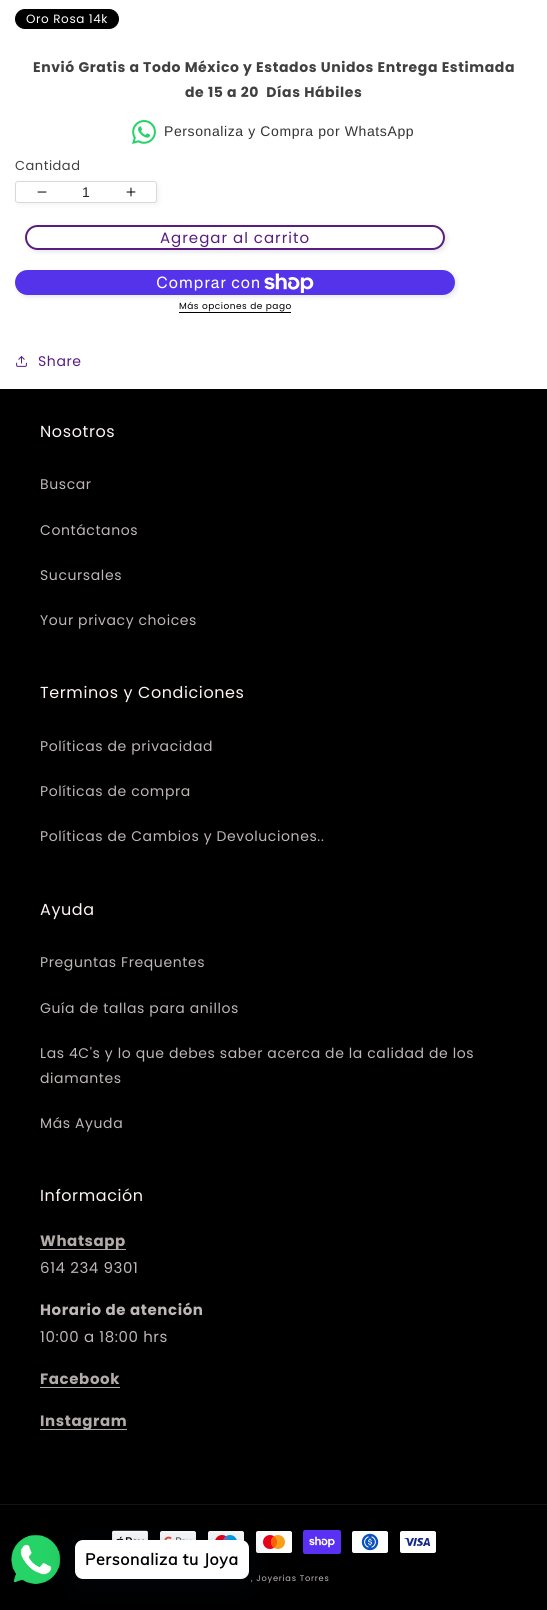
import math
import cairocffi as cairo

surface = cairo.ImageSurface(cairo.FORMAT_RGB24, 547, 1610)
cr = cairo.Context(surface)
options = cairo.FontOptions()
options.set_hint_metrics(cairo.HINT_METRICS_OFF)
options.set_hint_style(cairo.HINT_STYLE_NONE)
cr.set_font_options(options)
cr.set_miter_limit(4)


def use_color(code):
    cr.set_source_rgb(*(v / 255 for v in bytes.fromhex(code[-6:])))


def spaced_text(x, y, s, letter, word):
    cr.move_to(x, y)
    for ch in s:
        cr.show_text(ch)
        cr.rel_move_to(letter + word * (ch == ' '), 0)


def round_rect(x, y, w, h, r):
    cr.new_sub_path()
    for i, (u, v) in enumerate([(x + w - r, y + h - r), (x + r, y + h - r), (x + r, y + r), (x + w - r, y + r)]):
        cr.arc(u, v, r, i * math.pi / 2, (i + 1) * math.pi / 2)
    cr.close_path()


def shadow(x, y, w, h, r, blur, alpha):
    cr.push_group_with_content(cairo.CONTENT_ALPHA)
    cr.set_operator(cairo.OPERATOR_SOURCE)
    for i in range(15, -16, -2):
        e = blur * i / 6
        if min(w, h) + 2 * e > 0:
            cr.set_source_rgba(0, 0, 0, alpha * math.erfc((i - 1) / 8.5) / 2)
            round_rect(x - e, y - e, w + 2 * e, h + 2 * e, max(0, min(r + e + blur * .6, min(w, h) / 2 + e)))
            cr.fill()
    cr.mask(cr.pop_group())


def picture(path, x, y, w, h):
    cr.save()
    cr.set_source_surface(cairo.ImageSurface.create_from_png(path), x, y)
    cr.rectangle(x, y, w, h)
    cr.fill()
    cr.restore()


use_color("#ffffff")
cr.paint()
use_color("#000000")
round_rect(15.5, 9.5, 103, 19, 9.5)
cr.fill_preserve()
cr.set_line_width(1)
cr.stroke()
cr.select_font_face("Poppins")
cr.set_font_size(12)
use_color("#ffffff")
spaced_text(26, 23, "Oro Rosa 14k", 0.6, 0)
cr.select_font_face("Poppins", cairo.FONT_SLANT_NORMAL, cairo.FONT_WEIGHT_BOLD)
cr.set_font_size(14)
use_color("#404040")
spaced_text(33, 72, "Envió Gratis a Todo México y Estados Unidos Entrega Estimada", 0.6, 0)
spaced_text(185, 97, "de 15 a 20  Días Hábiles", 0.6, 0)
picture("img1.png", 132, 120, 24, 24)
cr.select_font_face("Liberation Sans")
use_color("#333333")
spaced_text(164, 136, "Personaliza y Compra por WhatsApp", 0.6, 0)
cr.select_font_face("Poppins")
cr.set_font_size(13)
use_color("#404040")
spaced_text(15, 170, "Cantidad", 0.5, 0)
use_color("#000000")
shadow(17, 183, 142, 22, 3, 2.5, 0.05)
use_color("#ffffff")
round_rect(15, 181, 142, 22, 3)
cr.fill()
picture("img2.png", 37, 191, 10, 2)
picture("img3.png", 126, 187, 10, 10)
round_rect(15.5, 181.5, 141, 21, 2.5)
use_color("#d9d9d9")
cr.stroke()
cr.select_font_face("Liberation Sans")
cr.set_font_size(14)
use_color("#262626")
cr.move_to(82, 197)
cr.show_text("1")
use_color("#000000")
shadow(27, 227, 420, 25, 12.5, 2.5, 0.1)
use_color("#ffffff")
round_rect(25, 225, 420, 25, 12.5)
cr.fill()
round_rect(26, 226, 418, 23, 11.5)
cr.set_line_width(2)
cr.stroke()
round_rect(26, 226, 418, 23, 11.5)
use_color("#591c80")
cr.stroke()
cr.select_font_face("Poppins")
cr.set_font_size(15)
spaced_text(160, 243, "Agregar al carrito", 1, 0)
use_color("#000000")
shadow(17, 272, 440, 25, 12.5, 2.5, 0.1)
use_color("#5433eb")
round_rect(15, 270, 440, 25, 12.5)
cr.fill()
cr.select_font_face("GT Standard")
cr.set_font_size(16)
use_color("#ffffff")
spaced_text(156, 288, "Comprar con", 0.6, 0)
picture("img4.png", 264, 273, 50, 20)
cr.select_font_face("Poppins")
cr.set_font_size(9)
use_color("#000000")
spaced_text(179, 309, "Más opciones de pago", 0.5, 0)
cr.rectangle(179, 312, 112, 1)
cr.fill()
picture("img5.png", 16, 356, 11, 11)
cr.set_font_size(14)
use_color("#591c80")
spaced_text(38, 366, "Share", 0.6, 0)
use_color("#000000")
cr.rectangle(0, 389, 547, 1221)
cr.fill()
cr.set_font_size(16)
use_color("#fff2f2")
spaced_text(40, 437, "Nosotros", 0.6, 0)
cr.set_font_size(14)
use_color("#bfb6b6")
spaced_text(40, 489, "Buscar", 0.6, 0)
spaced_text(40, 535, "Contáctanos", 0.6, 0)
spaced_text(40, 580, "Sucursales", 0.6, 0)
spaced_text(40, 625, "Your privacy choices", 0.6, 0)
cr.set_font_size(16)
use_color("#fff2f2")
spaced_text(40, 698, "Terminos y Condiciones", 0.6, 0)
cr.set_font_size(14)
use_color("#bfb6b6")
spaced_text(40, 751, "Políticas de privacidad", 0.6, 0)
spaced_text(40, 796, "Políticas de compra", 0.6, 0)
spaced_text(40, 841, "Políticas de Cambios y Devoluciones..", 0.6, 0)
cr.set_font_size(16)
use_color("#fff2f2")
spaced_text(40, 915, "Ayuda", 0.6, 0)
cr.set_font_size(14)
use_color("#bfb6b6")
spaced_text(40, 967, "Preguntas Frequentes", 0.6, 0)
spaced_text(40, 1013, "Guía de tallas para anillos", 0.6, 0)
spaced_text(40, 1058, "Las 4C's y lo que debes saber acerca de la calidad de los", 0.6, 0)
spaced_text(40, 1083, "diamantes", 0.6, 0)
spaced_text(40, 1128, "Más Ayuda", 0.6, 0)
cr.set_font_size(16)
use_color("#fff2f2")
spaced_text(40, 1201, "Información", 0.6, 0)
use_color("#b3a9a9")
cr.rectangle(40, 1249, 86, 1)
cr.fill()
cr.select_font_face("Poppins", cairo.FONT_SLANT_NORMAL, cairo.FONT_WEIGHT_BOLD)
cr.set_font_size(15)
use_color("#b3aaaa")
spaced_text(40, 1246, "Whatsapp", 0.6, 0)
cr.select_font_face("Poppins")
use_color("#bfb6b6")
spaced_text(40, 1273, "614 234 9301", 0.6, 0)
cr.select_font_face("Poppins", cairo.FONT_SLANT_NORMAL, cairo.FONT_WEIGHT_BOLD)
spaced_text(40, 1315, "Horario de atención", 0.6, 0)
cr.select_font_face("Poppins")
spaced_text(40, 1342, "10:00 a 18:00 hrs", 0.6, 0)
cr.select_font_face("Poppins", cairo.FONT_SLANT_NORMAL, cairo.FONT_WEIGHT_BOLD)
use_color("#b3aaaa")
spaced_text(40, 1384, "Facebook", 0.6, 0)
use_color("#b3a9a9")
cr.rectangle(40, 1387, 80, 1)
cr.fill()
cr.rectangle(40, 1429, 87, 1)
cr.fill()
use_color("#b3aaaa")
spaced_text(40, 1426, "Instagram", 0.6, 0)
use_color("#141313")
cr.rectangle(0, 1504, 547, 1)
cr.fill()
picture("img6.png", 112, 1530, 36, 10)
picture("img7.png", 160, 1531, 36, 9)
picture("img8.png", 208, 1531, 36, 10)
picture("img9.png", 256, 1531, 36, 22)
picture("img10.png", 303, 1530, 38, 24)
picture("img11.png", 352, 1531, 36, 22)
picture("img12.png", 400, 1531, 36, 22)
cr.select_font_face("Poppins")
cr.set_font_size(8.25)
use_color("#bfb6b6")
spaced_text(251, 1581, ", Joyerias Torres", 0.75, 0)
picture("img13.png", 11, 1534, 50, 50)
use_color("#00122e")
shadow(75, 1546, 174, 39, 8, 16, 0.24)
use_color("#ffffff")
round_rect(75, 1540, 174, 39, 8)
cr.fill()
cr.select_font_face("Muli", cairo.FONT_SLANT_NORMAL, cairo.FONT_WEIGHT_BOLD)
cr.set_font_size(16)
use_color("#000000")
spaced_text(85, 1565, "Personaliza tu Joya", 0.6, 0)
surface.write_to_png("result.png")
